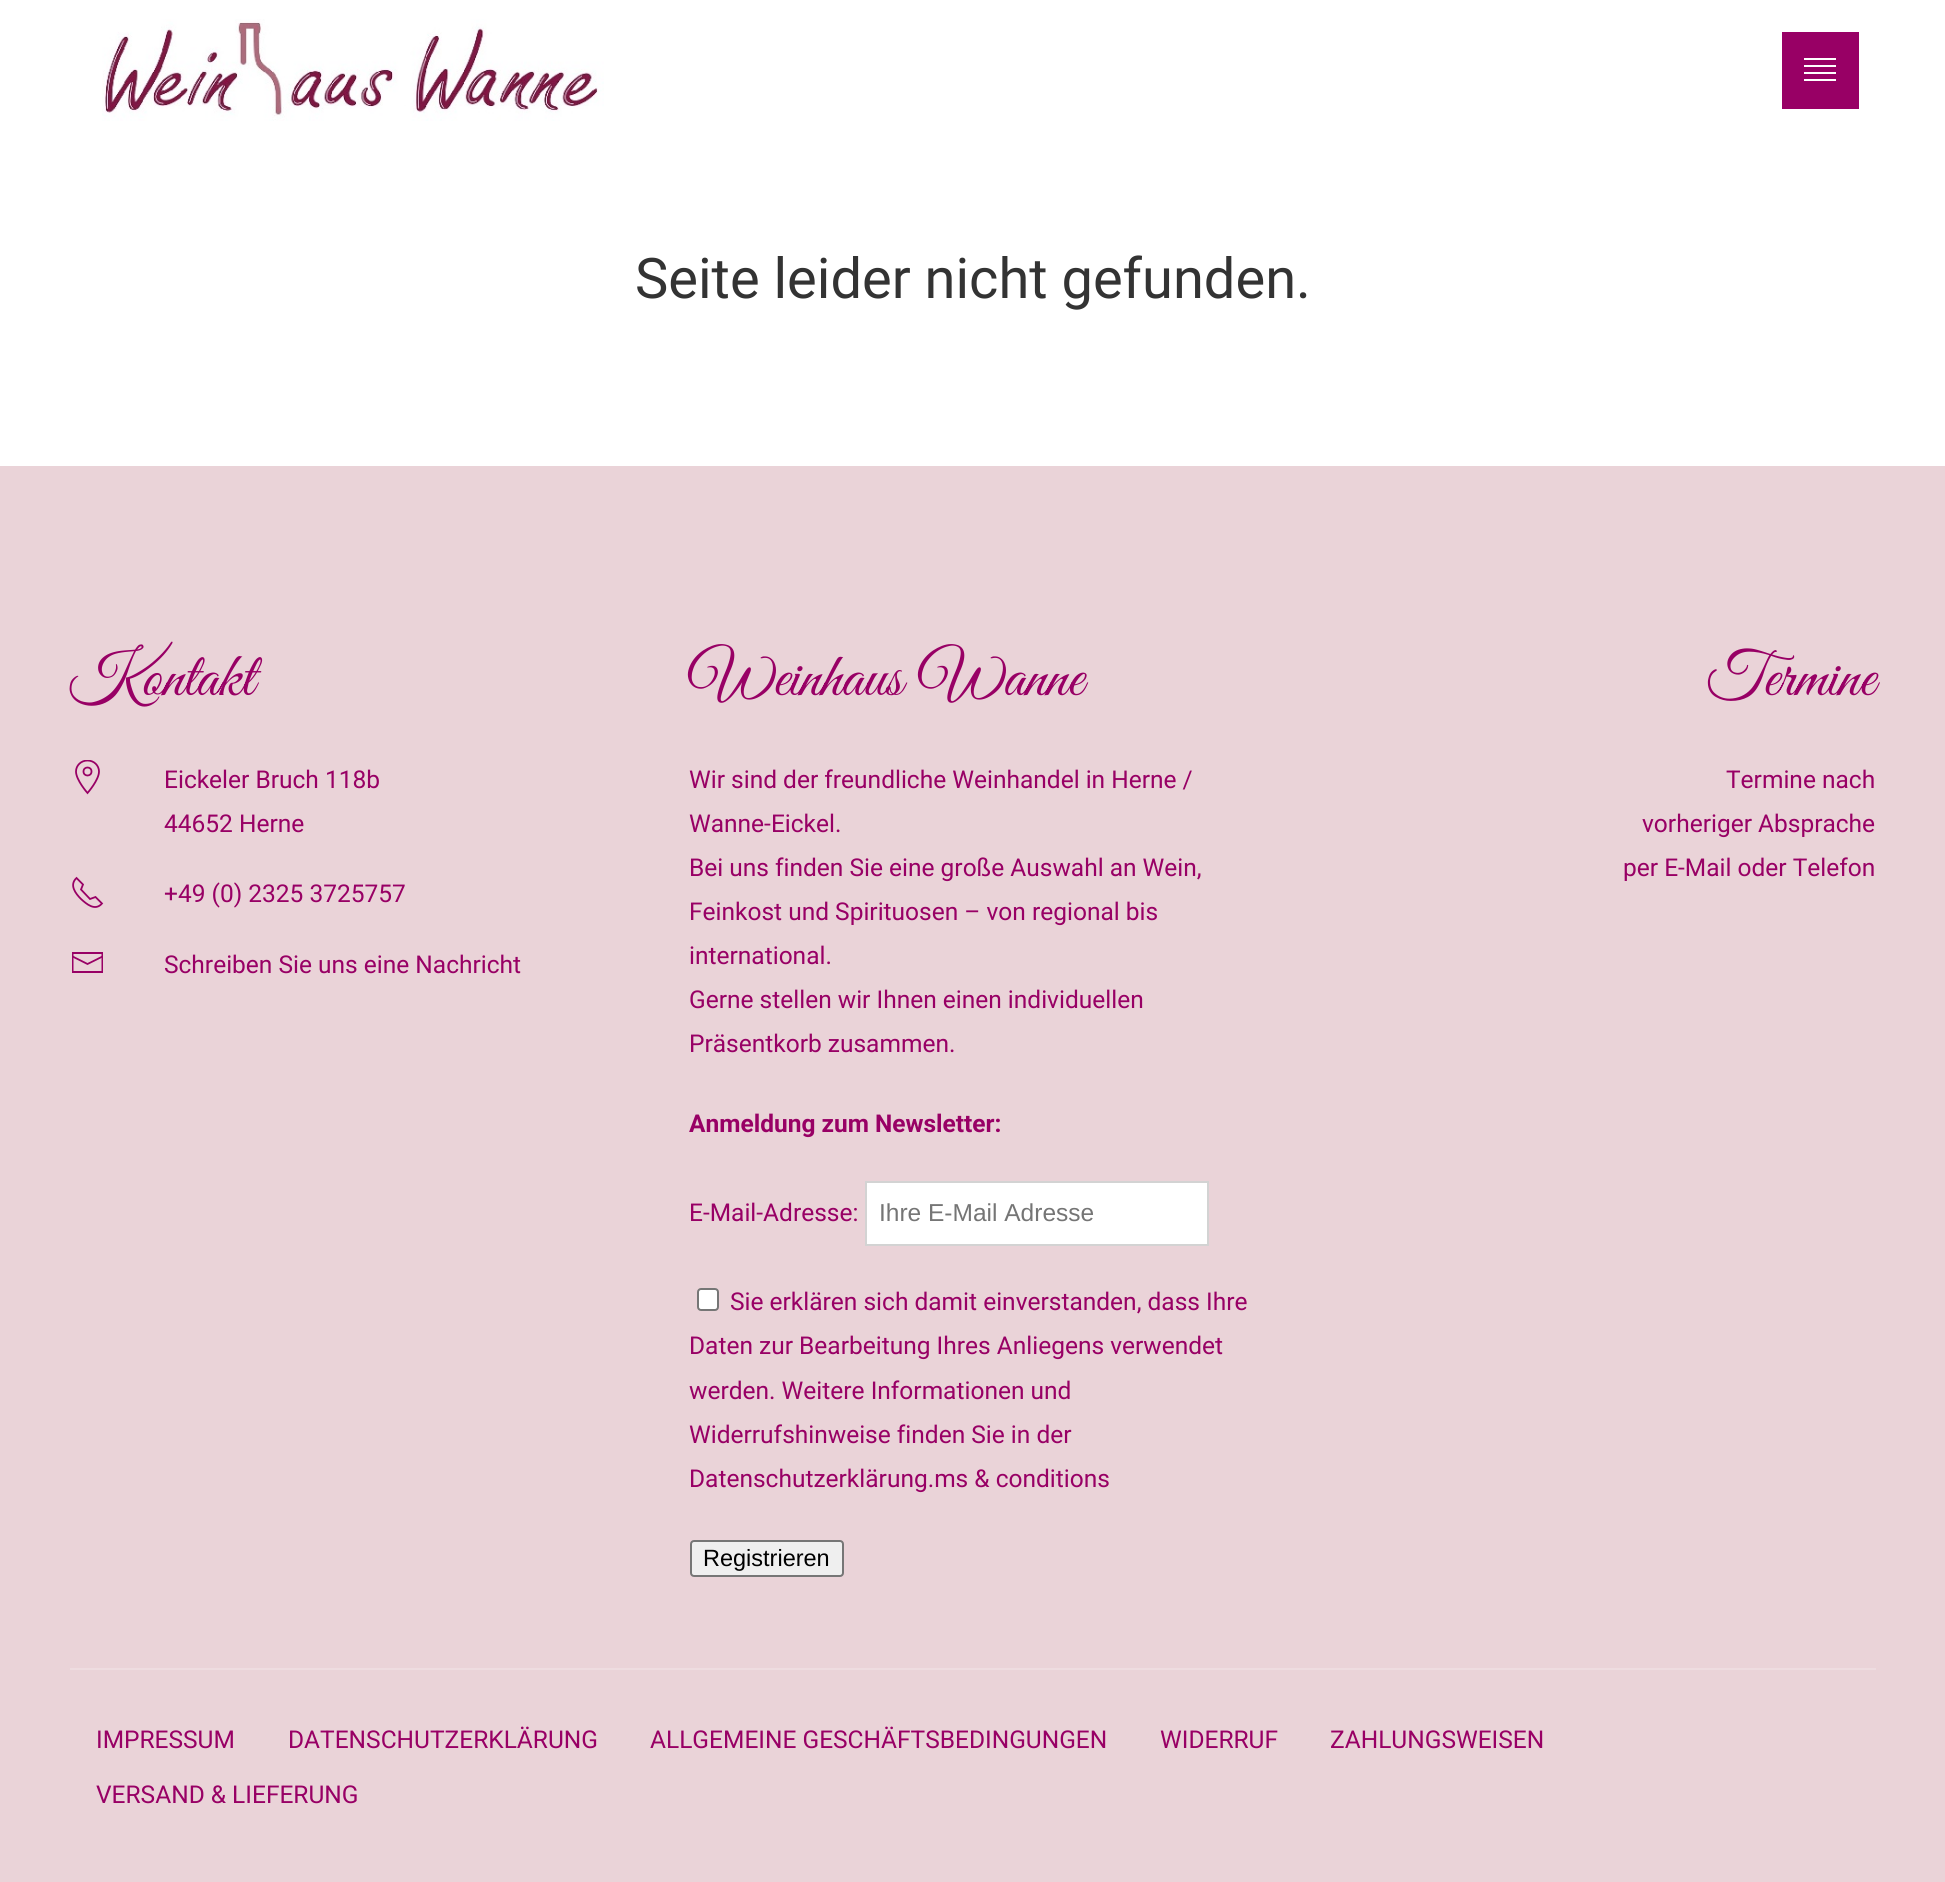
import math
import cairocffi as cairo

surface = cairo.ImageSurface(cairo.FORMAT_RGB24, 1945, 1882)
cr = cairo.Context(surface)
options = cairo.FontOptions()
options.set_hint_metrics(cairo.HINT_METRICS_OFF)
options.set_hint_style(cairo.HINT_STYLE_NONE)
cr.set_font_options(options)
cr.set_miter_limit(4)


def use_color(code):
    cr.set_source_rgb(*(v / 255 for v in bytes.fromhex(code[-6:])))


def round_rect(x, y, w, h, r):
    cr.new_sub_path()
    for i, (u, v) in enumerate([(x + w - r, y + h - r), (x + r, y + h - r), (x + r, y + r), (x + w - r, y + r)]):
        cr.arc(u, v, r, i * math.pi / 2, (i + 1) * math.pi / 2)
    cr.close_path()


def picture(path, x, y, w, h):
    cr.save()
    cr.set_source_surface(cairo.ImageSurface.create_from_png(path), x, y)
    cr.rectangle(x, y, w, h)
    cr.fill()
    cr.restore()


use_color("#ffffff")
cr.paint()
picture("img1.png", 102, 19, 502, 102)
use_color("#980065")
cr.rectangle(1782, 32, 77, 77)
cr.fill()
use_color("#ffffff")
cr.rectangle(1804, 58, 32, 2)
cr.fill()
cr.rectangle(1804, 65, 32, 2)
cr.fill()
cr.rectangle(1804, 72, 32, 2)
cr.fill()
cr.rectangle(1804, 79, 32, 2)
cr.fill()
cr.select_font_face("Roboto")
cr.set_font_size(56)
use_color("#333333")
cr.move_to(635, 298)
cr.show_text("Seite leider nicht gefunden.")
use_color("#ead3d8")
cr.rectangle(0, 466, 1945, 1416)
cr.fill()
cr.select_font_face("Great Vibes")
cr.set_font_size(63)
use_color("#980065")
cr.move_to(70, 695)
cr.show_text("Kontakt")
cr.save()
cr.rectangle(70, 760, 35, 35)
cr.clip()
cr.new_path()
cr.move_to(87.5, 760.5)
cr.curve_to(81, 760.5, 76, 765.5, 76, 771.5)
cr.curve_to(76, 780, 87.5, 793, 87.5, 793)
cr.curve_to(87.5, 793, 99, 780, 99, 771.5)
cr.curve_to(99, 765.5, 94, 760.5, 87.5, 760.5)
cr.close_path()
cr.set_line_width(1.8)
cr.stroke()
cr.restore()
cr.arc(87.5, 771.5, 4, 0, 2 * math.pi)
cr.set_line_width(1.8)
cr.stroke()
cr.select_font_face("Roboto")
cr.set_font_size(24.5)
cr.move_to(164, 788)
cr.show_text("Eickeler Bruch 118b")
cr.move_to(164, 832)
cr.show_text("44652 Herne")
cr.new_path()
cr.move_to(81, 899)
cr.curve_to(86.5, 904, 95, 911.5, 102, 903.5)
cr.line_to(95.5, 897)
cr.line_to(90, 899)
cr.line_to(81, 889.5)
cr.line_to(83, 884.5)
cr.line_to(76.5, 878)
cr.curve_to(69, 885, 75.5, 893.5, 81, 899)
cr.stroke()
cr.move_to(164, 902)
cr.show_text("+49 (0) 2325 3725757")
cr.new_path()
cr.move_to(72.5, 956.5)
cr.line_to(87.5, 964)
cr.line_to(102.5, 956.5)
cr.stroke()
cr.new_path()
cr.move_to(72, 952)
cr.line_to(72, 973)
cr.line_to(103, 973)
cr.line_to(103, 952)
cr.close_path()
cr.move_to(101.5, 971)
cr.line_to(73.5, 971)
cr.line_to(73.5, 954)
cr.line_to(101.5, 954)
cr.close_path()
cr.fill()
cr.move_to(164, 973)
cr.show_text("Schreiben Sie uns eine Nachricht")
cr.select_font_face("Great Vibes")
cr.set_font_size(63)
cr.move_to(689, 695)
cr.show_text("Weinhaus Wanne")
cr.select_font_face("Roboto")
cr.set_font_size(24.5)
cr.move_to(689, 788)
cr.show_text("Wir sind der freundliche Weinhandel in Herne /")
cr.move_to(689, 832)
cr.show_text("Wanne-Eickel.")
cr.move_to(689, 876)
cr.show_text("Bei uns finden Sie eine große Auswahl an Wein,")
cr.move_to(689, 920)
cr.show_text("Feinkost und Spirituosen – von regional bis")
cr.move_to(689, 964)
cr.show_text("international.")
cr.move_to(689, 1008)
cr.show_text("Gerne stellen wir Ihnen einen individuellen")
cr.move_to(689, 1052)
cr.show_text("Präsentkorb zusammen.")
cr.select_font_face("Roboto", cairo.FONT_SLANT_NORMAL, cairo.FONT_WEIGHT_BOLD)
cr.move_to(689, 1132)
cr.show_text("Anmeldung zum Newsletter:")
cr.select_font_face("Roboto")
cr.move_to(689, 1221)
cr.show_text("E-Mail-Adresse:")
use_color("#ffffff")
cr.rectangle(866, 1182, 342, 63)
cr.fill_preserve()
use_color("#d3d3d3")
cr.set_line_width(2)
cr.stroke()
cr.select_font_face("Liberation Sans")
use_color("#757575")
cr.move_to(879, 1221)
cr.show_text("Ihre E-Mail Adresse")
use_color("#ffffff")
round_rect(698, 1289, 20, 21, 3)
cr.fill_preserve()
use_color("#767676")
cr.stroke()
cr.select_font_face("Roboto")
use_color("#980065")
cr.move_to(730, 1310)
cr.show_text("Sie erklären sich damit einverstanden, dass Ihre")
cr.move_to(689, 1354)
cr.show_text("Daten zur Bearbeitung Ihres Anliegens verwendet")
cr.move_to(689, 1399)
cr.show_text("werden. Weitere Informationen und")
cr.move_to(689, 1443)
cr.show_text("Widerrufshinweise finden Sie in der")
cr.move_to(689, 1487)
cr.show_text("Datenschutzerklärung.ms & conditions")
use_color("#efefef")
round_rect(691, 1541, 152, 35, 3)
cr.fill_preserve()
use_color("#767676")
cr.stroke()
cr.select_font_face("Liberation Sans")
cr.set_font_size(23.5)
use_color("#000000")
cr.move_to(703, 1566)
cr.show_text("Registrieren")
cr.select_font_face("Great Vibes")
cr.set_font_size(63)
use_color("#980065")
cr.move_to(1706, 695)
cr.show_text("Termine")
cr.select_font_face("Roboto")
cr.set_font_size(24.5)
cr.move_to(1726, 788)
cr.show_text("Termine nach")
cr.move_to(1642, 832)
cr.show_text("vorheriger Absprache")
cr.move_to(1623, 876)
cr.show_text("per E-Mail oder Telefon")
use_color("#eedce0")
cr.rectangle(70, 1668, 1806, 2)
cr.fill()
use_color("#980065")
cr.move_to(96, 1748)
cr.show_text("IMPRESSUM")
cr.move_to(288, 1748)
cr.show_text("DATENSCHUTZERKLÄRUNG")
cr.move_to(650, 1748)
cr.show_text("ALLGEMEINE GESCHÄFTSBEDINGUNGEN")
cr.move_to(1160, 1748)
cr.show_text("WIDERRUF")
cr.move_to(1330, 1748)
cr.show_text("ZAHLUNGSWEISEN")
cr.move_to(96, 1803)
cr.show_text("VERSAND & LIEFERUNG")
surface.write_to_png("result.png")
